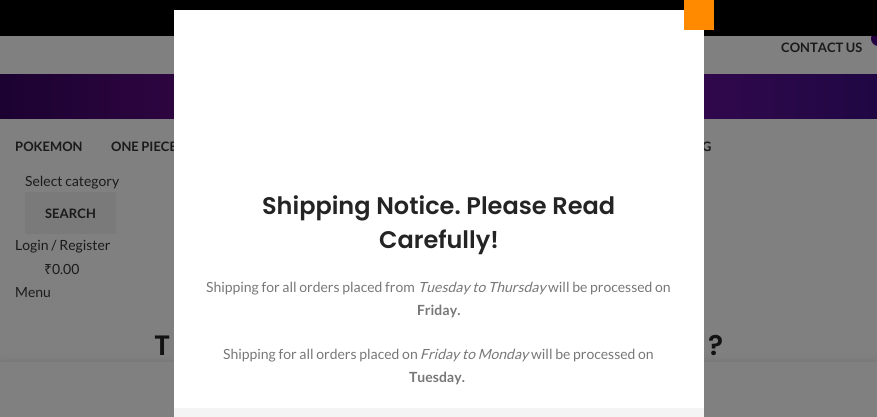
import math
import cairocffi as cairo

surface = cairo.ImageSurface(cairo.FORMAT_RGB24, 877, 417)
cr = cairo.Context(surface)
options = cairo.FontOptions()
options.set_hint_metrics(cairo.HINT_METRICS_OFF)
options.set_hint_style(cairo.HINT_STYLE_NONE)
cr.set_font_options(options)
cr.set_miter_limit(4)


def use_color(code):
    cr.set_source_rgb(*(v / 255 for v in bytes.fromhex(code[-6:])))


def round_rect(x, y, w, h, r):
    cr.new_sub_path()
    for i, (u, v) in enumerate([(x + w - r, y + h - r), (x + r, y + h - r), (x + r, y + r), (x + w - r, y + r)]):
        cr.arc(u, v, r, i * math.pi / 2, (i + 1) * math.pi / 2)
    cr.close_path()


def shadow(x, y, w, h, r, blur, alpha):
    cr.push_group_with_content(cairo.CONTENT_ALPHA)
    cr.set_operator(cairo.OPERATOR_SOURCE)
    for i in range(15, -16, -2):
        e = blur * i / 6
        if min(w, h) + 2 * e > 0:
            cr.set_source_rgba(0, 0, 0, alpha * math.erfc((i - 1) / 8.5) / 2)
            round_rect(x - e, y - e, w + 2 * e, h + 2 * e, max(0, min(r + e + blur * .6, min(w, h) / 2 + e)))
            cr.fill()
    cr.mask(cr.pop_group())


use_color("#808080")
cr.paint()
use_color("#230040")
round_rect(871, 31, 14, 15, 7.5)
cr.fill()
use_color("#000000")
cr.rectangle(0, 0, 877, 36)
cr.fill()
cr.select_font_face("Lato", cairo.FONT_SLANT_NORMAL, cairo.FONT_WEIGHT_BOLD)
cr.set_font_size(13)
use_color("#1a1a1a")
cr.move_to(781, 52)
cr.show_text("CONTACT US")
cr.move_to(15, 151)
cr.show_text("POKEMON")
cr.move_to(111, 151)
cr.show_text("ONE PIECE")
cr.move_to(702, 151)
cr.show_text("G")
gradient = cairo.LinearGradient(0, 104, 877, 104)
gradient.add_color_stop_rgba(0, 0.106, 0.008, 0.192, 1)
gradient.add_color_stop_rgba(0.5, 0.286, 0.043, 0.341, 1)
gradient.add_color_stop_rgba(1, 0.125, 0.027, 0.267, 1)
cr.set_source(gradient)
cr.rectangle(0, 74, 877, 45)
cr.fill()
cr.select_font_face("Lato")
cr.set_font_size(14)
use_color("#1a1a1a")
cr.move_to(25, 186)
cr.show_text("Select category")
use_color("#7a7a7a")
cr.rectangle(25, 192, 91, 42)
cr.fill()
cr.select_font_face("Lato", cairo.FONT_SLANT_NORMAL, cairo.FONT_WEIGHT_BOLD)
cr.set_font_size(13)
use_color("#1a1a1a")
cr.move_to(45, 218)
cr.show_text("SEARCH")
cr.select_font_face("Lato")
cr.set_font_size(14)
cr.move_to(15, 250)
cr.show_text("Login / Register")
cr.select_font_face("Noto Sans")
cr.move_to(44, 274)
cr.show_text("₹")
cr.select_font_face("Lato")
cr.move_to(52, 274)
cr.show_text("0.00")
cr.move_to(15, 297)
cr.show_text("Menu")
cr.select_font_face("Poppins SemiBold")
cr.set_font_size(28)
use_color("#121212")
cr.move_to(154, 355)
cr.show_text("T")
cr.move_to(708, 355)
cr.show_text("?")
use_color("#000000")
shadow(0, 362, 877, 55, 0, 4.5, 0.12)
use_color("#808080")
cr.rectangle(0, 362, 877, 55)
cr.fill()
use_color("#ffffff")
cr.rectangle(174, 10, 530, 398)
cr.fill()
use_color("#ff8a00")
cr.rectangle(684, 0, 30, 30)
cr.fill()
cr.set_font_size(24)
use_color("#242424")
cr.move_to(262, 214)
cr.show_text("Shipping Notice. Please Read")
cr.move_to(379, 248)
cr.show_text("Carefully!")
cr.select_font_face("Lato")
cr.set_font_size(14)
use_color("#777777")
cr.move_to(206, 292)
cr.show_text("Shipping for all orders placed from")
cr.select_font_face("Lato", cairo.FONT_SLANT_ITALIC)
cr.move_to(418, 292)
cr.show_text("Tuesday to Thursday")
cr.select_font_face("Lato")
cr.move_to(548, 292)
cr.show_text("will be processed on")
cr.select_font_face("Lato", cairo.FONT_SLANT_NORMAL, cairo.FONT_WEIGHT_BOLD)
cr.move_to(417, 315)
cr.show_text("Friday.")
cr.select_font_face("Lato")
cr.move_to(223, 359)
cr.show_text("Shipping for all orders placed on")
cr.select_font_face("Lato", cairo.FONT_SLANT_ITALIC)
cr.move_to(420, 359)
cr.show_text("Friday to Monday")
cr.select_font_face("Lato")
cr.move_to(531, 359)
cr.show_text("will be processed on")
cr.select_font_face("Lato", cairo.FONT_SLANT_NORMAL, cairo.FONT_WEIGHT_BOLD)
cr.move_to(409, 382)
cr.show_text("Tuesday.")
use_color("#f4f4f4")
cr.rectangle(174, 408, 530, 9)
cr.fill()
surface.write_to_png("result.png")
